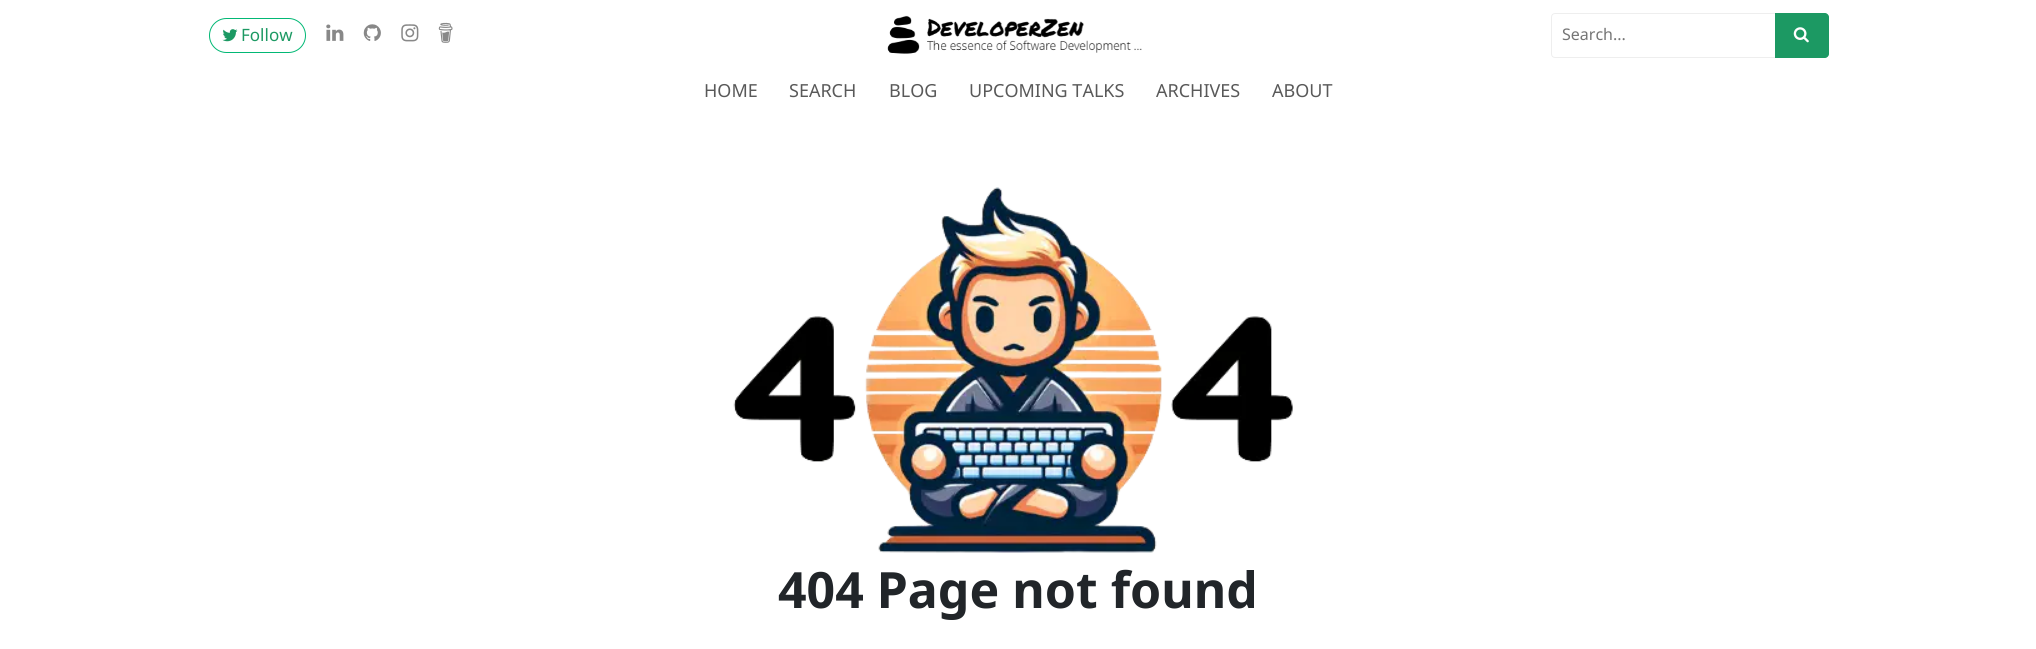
import math
import cairocffi as cairo

surface = cairo.ImageSurface(cairo.FORMAT_RGB24, 2036, 649)
cr = cairo.Context(surface)
options = cairo.FontOptions()
options.set_hint_metrics(cairo.HINT_METRICS_OFF)
options.set_hint_style(cairo.HINT_STYLE_NONE)
cr.set_font_options(options)
cr.set_miter_limit(4)


def use_color(code):
    cr.set_source_rgb(*(v / 255 for v in bytes.fromhex(code[-6:])))


def round_rect(x, y, w, h, r):
    cr.new_sub_path()
    for i, (u, v) in enumerate([(x + w - r, y + h - r), (x + r, y + h - r), (x + r, y + r), (x + w - r, y + r)]):
        cr.arc(u, v, r, i * math.pi / 2, (i + 1) * math.pi / 2)
    cr.close_path()


def picture(path, x, y, w, h):
    cr.save()
    cr.set_source_surface(cairo.ImageSurface.create_from_png(path), x, y)
    cr.rectangle(x, y, w, h)
    cr.fill()
    cr.restore()


use_color("#ffffff")
cr.paint()
round_rect(209.5, 18.5, 96, 34, 17)
use_color("#02b875")
cr.set_line_width(1)
cr.stroke()
picture("img1.png", 222, 29, 16, 13)
cr.select_font_face("Noto Sans")
cr.set_font_size(17)
use_color("#1c9963")
cr.move_to(241, 41)
cr.show_text("Follow")
picture("img2.png", 326, 24, 18, 17)
picture("img3.png", 363, 24, 18, 17)
picture("img4.png", 401, 24, 18, 18)
picture("img5.png", 438, 22, 15, 21)
picture("img6.png", 887, 15, 255, 39)
cr.new_path()
cr.move_to(1555, 13.5)
cr.line_to(1775.5, 13.5)
cr.line_to(1775.5, 57.5)
cr.line_to(1555, 57.5)
cr.curve_to(1553, 57.5, 1551.5, 56, 1551.5, 54)
cr.line_to(1551.5, 17)
cr.curve_to(1551.5, 15, 1553, 13.5, 1555, 13.5)
cr.close_path()
use_color("#eeeeee")
cr.stroke()
cr.set_font_size(16)
use_color("#757575")
cr.move_to(1562, 40)
cr.show_text("Search...")
use_color("#1c9963")
cr.new_path()
cr.move_to(1775, 13)
cr.line_to(1825, 13)
cr.curve_to(1827, 13, 1829, 15, 1829, 17)
cr.line_to(1829, 54)
cr.curve_to(1829, 56, 1827, 58, 1825, 58)
cr.line_to(1775, 58)
cr.close_path()
cr.fill()
picture("img7.png", 1793, 27, 16, 16)
cr.set_font_size(18)
use_color("#595959")
cr.move_to(704, 97)
cr.show_text("HOME")
cr.move_to(789, 97)
cr.show_text("SEARCH")
cr.move_to(889, 97)
cr.show_text("BLOG")
cr.move_to(969, 97)
cr.show_text("UPCOMING TALKS")
cr.move_to(1156, 97)
cr.show_text("ARCHIVES")
cr.move_to(1272, 97)
cr.show_text("ABOUT")
picture("img8.png", 733, 187, 560, 366)
cr.select_font_face("Noto Sans", cairo.FONT_SLANT_NORMAL, cairo.FONT_WEIGHT_BOLD)
cr.set_font_size(50)
use_color("#212529")
cr.move_to(778, 608)
cr.show_text("404 Page not found")
surface.write_to_png("result.png")
